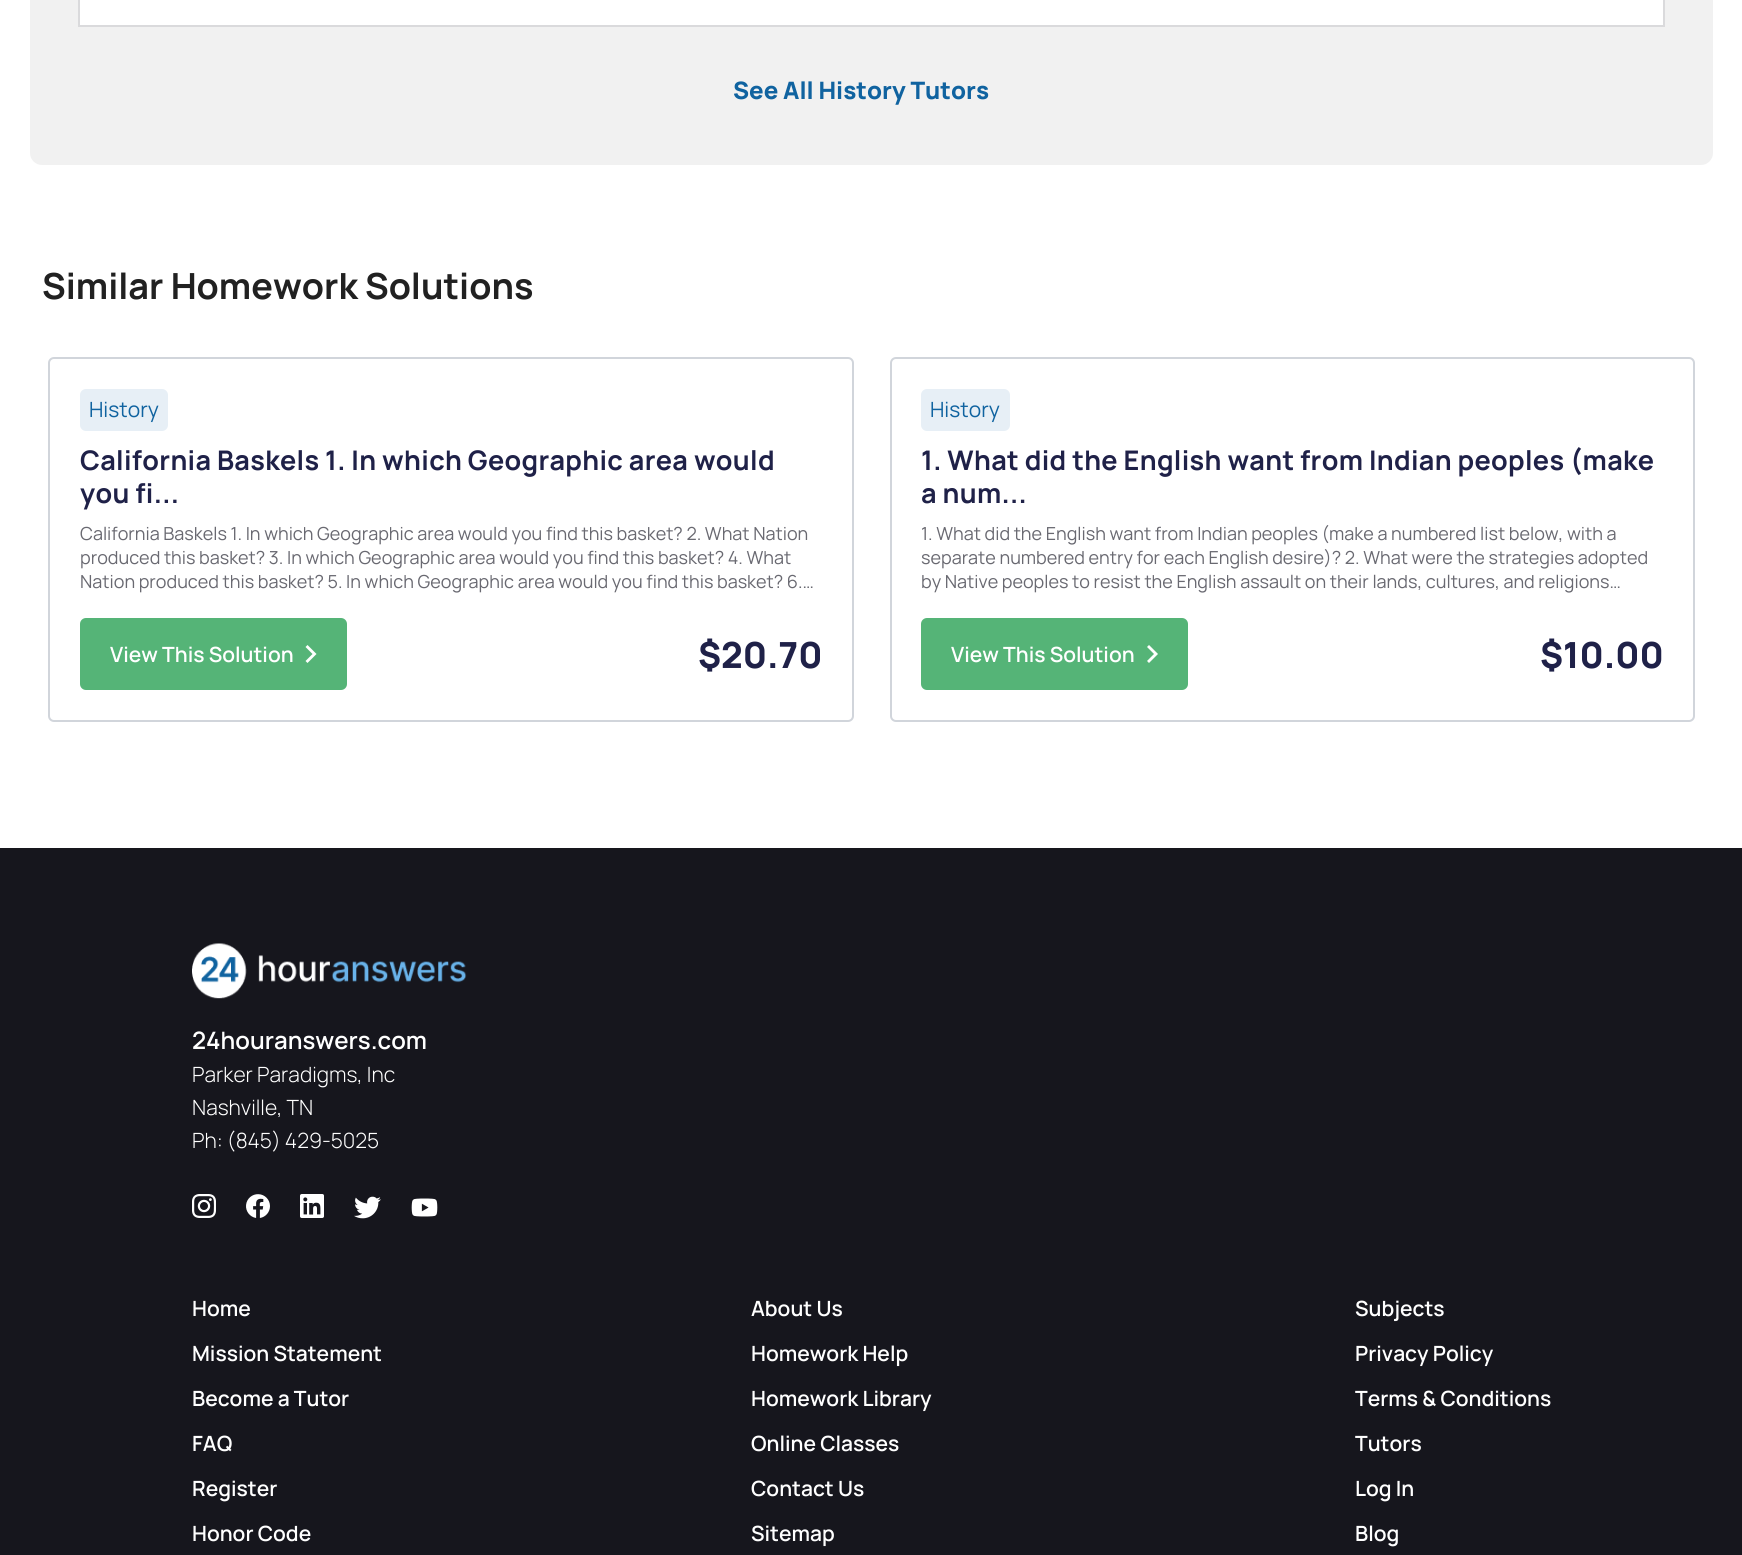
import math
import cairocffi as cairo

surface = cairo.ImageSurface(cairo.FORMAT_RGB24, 1742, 1555)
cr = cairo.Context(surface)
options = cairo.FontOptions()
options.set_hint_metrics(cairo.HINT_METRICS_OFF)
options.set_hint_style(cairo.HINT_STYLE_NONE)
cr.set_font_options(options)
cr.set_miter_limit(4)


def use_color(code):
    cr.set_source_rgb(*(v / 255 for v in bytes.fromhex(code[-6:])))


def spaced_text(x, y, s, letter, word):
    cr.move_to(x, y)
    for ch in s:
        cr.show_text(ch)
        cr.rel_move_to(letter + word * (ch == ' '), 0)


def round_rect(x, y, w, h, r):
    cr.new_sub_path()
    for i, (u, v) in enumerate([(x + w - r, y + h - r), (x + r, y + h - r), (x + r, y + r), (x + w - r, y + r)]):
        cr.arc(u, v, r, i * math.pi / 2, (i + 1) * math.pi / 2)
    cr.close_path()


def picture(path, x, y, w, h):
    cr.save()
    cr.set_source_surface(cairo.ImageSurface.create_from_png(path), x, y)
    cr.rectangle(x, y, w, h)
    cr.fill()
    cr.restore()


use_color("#ffffff")
cr.paint()
use_color("#f1f1f1")
round_rect(30, -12, 1683, 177, 12)
cr.fill()
use_color("#ffffff")
cr.rectangle(79, -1, 1585, 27)
cr.fill_preserve()
use_color("#dadadc")
cr.stroke()
cr.select_font_face("Manrope ExtraBold")
cr.set_font_size(24)
use_color("#1063a0")
cr.move_to(733, 99)
cr.show_text("See All History Tutors")
cr.select_font_face("Manrope", cairo.FONT_SLANT_NORMAL, cairo.FONT_WEIGHT_BOLD)
cr.set_font_size(36)
use_color("#212121")
cr.move_to(42, 299)
cr.show_text("Similar Homework Solutions")
round_rect(49, 358, 804, 363, 5)
use_color("#d1d5db")
cr.stroke()
use_color("#e7eff6")
round_rect(80, 389, 88, 42, 6)
cr.fill()
cr.select_font_face("Manrope")
cr.set_font_size(21)
use_color("#1063a0")
cr.move_to(89, 417)
cr.show_text("History")
cr.select_font_face("Manrope", cairo.FONT_SLANT_NORMAL, cairo.FONT_WEIGHT_BOLD)
cr.set_font_size(27)
use_color("#1f2148")
spaced_text(80, 470, "California Baskels 1. In which Geographic area would", 0.3, 0)
spaced_text(80, 503, "you fi...", 0.3, 0)
cr.select_font_face("Manrope")
cr.set_font_size(18)
use_color("#696971")
cr.move_to(80, 540)
cr.show_text("California Baskels 1. In which Geographic area would you find this basket? 2. What Nation")
cr.move_to(80, 564)
cr.show_text("produced this basket? 3. In which Geographic area would you find this basket? 4. What")
cr.move_to(80, 588)
cr.show_text("Nation produced this basket? 5. In which Geographic area would you find this basket? 6.…")
use_color("#55b477")
round_rect(80, 618, 267, 72, 6)
cr.fill()
cr.select_font_face("Manrope SemiBold")
cr.set_font_size(21)
use_color("#ffffff")
cr.move_to(110, 662)
cr.show_text("View This Solution")
cr.new_path()
cr.move_to(305.5, 661)
cr.line_to(312.5, 654)
cr.line_to(305.5, 647)
cr.line_to(307.5, 645)
cr.line_to(316.5, 654)
cr.line_to(307.5, 663)
cr.close_path()
cr.fill()
cr.select_font_face("Manrope ExtraBold")
cr.set_font_size(36)
use_color("#1f2148")
cr.move_to(698, 668)
cr.show_text("$20.70")
round_rect(891, 358, 803, 363, 5)
use_color("#d1d5db")
cr.stroke()
use_color("#e7eff6")
round_rect(921, 389, 89, 42, 6)
cr.fill()
cr.select_font_face("Manrope")
cr.set_font_size(21)
use_color("#1063a0")
cr.move_to(930, 417)
cr.show_text("History")
cr.select_font_face("Manrope", cairo.FONT_SLANT_NORMAL, cairo.FONT_WEIGHT_BOLD)
cr.set_font_size(27)
use_color("#1f2148")
spaced_text(921, 470, "1. What did the English want from Indian peoples (make", 0.3, 0)
spaced_text(921, 503, "a num...", 0.3, 0)
cr.select_font_face("Manrope")
cr.set_font_size(18)
use_color("#696971")
cr.move_to(921, 540)
cr.show_text("1. What did the English want from Indian peoples (make a numbered list below, with a")
cr.move_to(921, 564)
cr.show_text("separate numbered entry for each English desire)? 2. What were the strategies adopted")
cr.move_to(921, 588)
cr.show_text("by Native peoples to resist the English assault on their lands, cultures, and religions…")
use_color("#55b477")
round_rect(921, 618, 267, 72, 6)
cr.fill()
cr.select_font_face("Manrope SemiBold")
cr.set_font_size(21)
use_color("#ffffff")
cr.move_to(951, 662)
cr.show_text("View This Solution")
cr.new_path()
cr.move_to(1147, 661)
cr.line_to(1154, 654)
cr.line_to(1147, 647)
cr.line_to(1149, 645)
cr.line_to(1158, 654)
cr.line_to(1149, 663)
cr.close_path()
cr.fill()
cr.select_font_face("Manrope ExtraBold")
cr.set_font_size(36)
use_color("#1f2148")
cr.move_to(1540, 668)
cr.show_text("$10.00")
use_color("#16161d")
cr.rectangle(0, 848, 1742, 707)
cr.fill()
picture("img1.png", 192, 943, 275, 56)
cr.select_font_face("Manrope SemiBold")
cr.set_font_size(24)
use_color("#ffffff")
cr.move_to(192, 1049)
cr.show_text("24houranswers.com")
cr.select_font_face("Manrope Light")
cr.set_font_size(21)
cr.move_to(192, 1082)
cr.show_text("Parker Paradigms, Inc")
cr.move_to(192, 1115)
cr.show_text("Nashville, TN")
cr.move_to(192, 1148)
cr.show_text("Ph: (845) 429-5025")
picture("img2.png", 192, 1194, 24, 24)
picture("img3.png", 246, 1194, 24, 24)
picture("img4.png", 300, 1194, 24, 24)
picture("img5.png", 354, 1196, 27, 23)
picture("img6.png", 411, 1198, 27, 19)
cr.select_font_face("Manrope SemiBold")
cr.move_to(192, 1316)
cr.show_text("Home")
cr.move_to(192, 1361)
cr.show_text("Mission Statement")
cr.move_to(192, 1406)
cr.show_text("Become a Tutor")
cr.move_to(192, 1451)
cr.show_text("FAQ")
cr.move_to(192, 1496)
cr.show_text("Register")
cr.move_to(192, 1541)
cr.show_text("Honor Code")
cr.move_to(751, 1316)
cr.show_text("About Us")
cr.move_to(751, 1361)
cr.show_text("Homework Help")
cr.move_to(751, 1406)
cr.show_text("Homework Library")
cr.move_to(751, 1451)
cr.show_text("Online Classes")
cr.move_to(751, 1496)
cr.show_text("Contact Us")
cr.move_to(751, 1541)
cr.show_text("Sitemap")
cr.move_to(1355, 1316)
cr.show_text("Subjects")
cr.move_to(1355, 1361)
cr.show_text("Privacy Policy")
cr.move_to(1355, 1406)
cr.show_text("Terms & Conditions")
cr.move_to(1355, 1451)
cr.show_text("Tutors")
cr.move_to(1355, 1496)
cr.show_text("Log In")
cr.move_to(1355, 1541)
cr.show_text("Blog")
surface.write_to_png("result.png")
